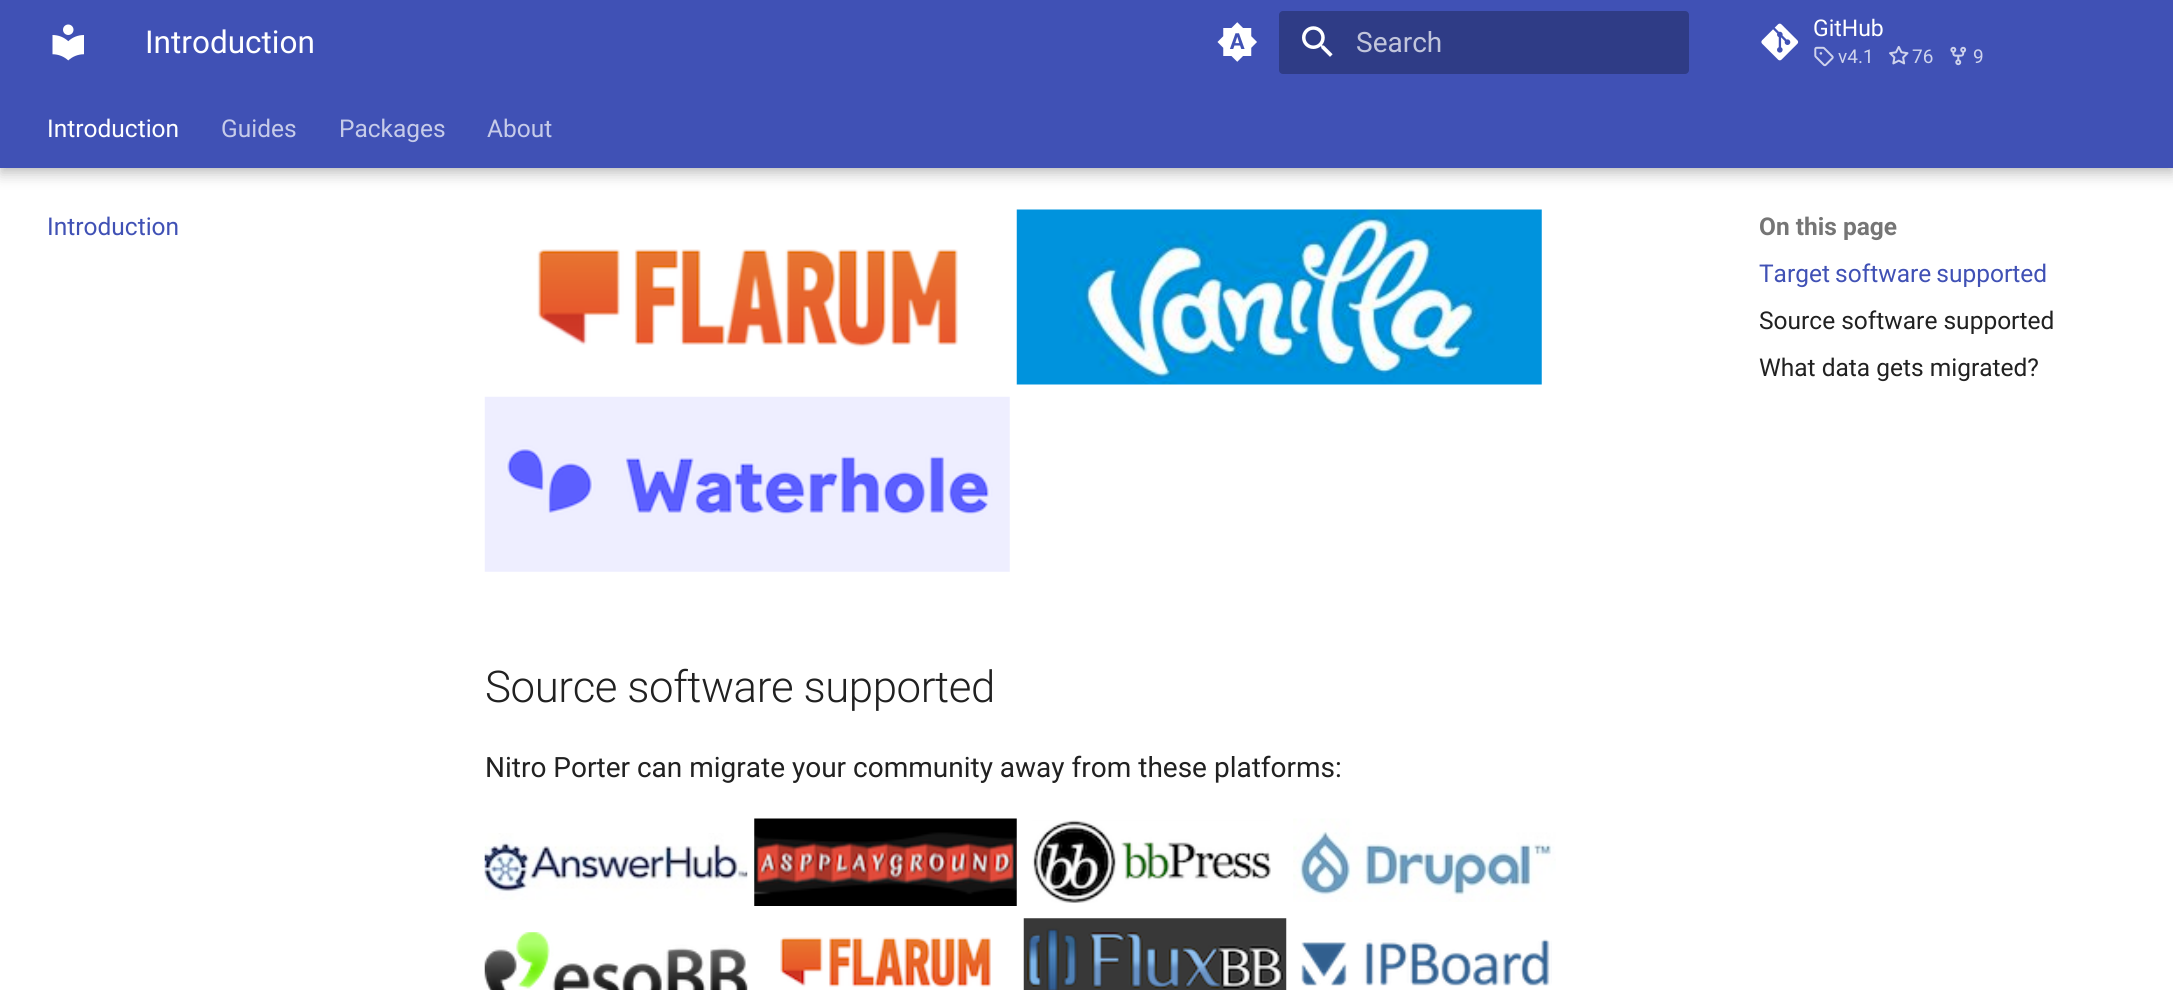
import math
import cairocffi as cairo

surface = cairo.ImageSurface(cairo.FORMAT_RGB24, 2173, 990)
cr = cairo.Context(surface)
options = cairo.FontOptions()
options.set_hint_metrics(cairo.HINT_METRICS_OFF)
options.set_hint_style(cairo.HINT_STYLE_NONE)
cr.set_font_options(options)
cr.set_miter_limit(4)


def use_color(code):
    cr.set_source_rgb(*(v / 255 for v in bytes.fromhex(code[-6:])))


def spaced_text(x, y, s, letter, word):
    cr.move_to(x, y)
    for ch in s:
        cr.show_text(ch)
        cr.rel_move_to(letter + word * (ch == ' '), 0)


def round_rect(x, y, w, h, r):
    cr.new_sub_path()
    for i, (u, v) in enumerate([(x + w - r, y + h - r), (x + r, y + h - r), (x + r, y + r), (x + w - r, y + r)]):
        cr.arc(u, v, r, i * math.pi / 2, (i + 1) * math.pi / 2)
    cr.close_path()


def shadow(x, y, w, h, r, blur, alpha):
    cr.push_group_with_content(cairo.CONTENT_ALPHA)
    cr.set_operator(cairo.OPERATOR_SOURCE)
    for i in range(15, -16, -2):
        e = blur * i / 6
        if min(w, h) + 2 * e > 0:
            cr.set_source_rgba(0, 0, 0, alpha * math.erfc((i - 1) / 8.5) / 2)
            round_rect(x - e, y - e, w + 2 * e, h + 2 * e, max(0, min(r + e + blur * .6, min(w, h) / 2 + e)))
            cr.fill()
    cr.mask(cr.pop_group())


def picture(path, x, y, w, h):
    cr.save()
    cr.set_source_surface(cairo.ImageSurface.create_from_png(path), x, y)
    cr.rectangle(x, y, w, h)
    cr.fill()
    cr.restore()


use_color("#ffffff")
cr.paint()
use_color("#000000")
shadow(0, 7, 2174, 168, 0, 7, 0.2)
shadow(0, 0, 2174, 168, 0, 3.5, 0.1)
use_color("#4051b5")
cr.rectangle(0, 0, 2173, 168)
cr.fill()
picture("img1.png", 52, 24, 32, 37)
cr.select_font_face("Roboto")
cr.set_font_size(31.5)
use_color("#ffffff")
cr.move_to(145, 53)
cr.show_text("Introduction")
picture("img2.png", 1217, 22, 40, 40)
use_color("#2f3c86")
round_rect(1279, 11, 410, 63, 4)
cr.fill()
picture("img3.png", 1302, 26, 31, 31)
cr.set_font_size(28)
use_color("#c1c5db")
cr.move_to(1356, 52)
cr.show_text("Search")
picture("img4.png", 1761, 23, 38, 38)
cr.set_font_size(23)
use_color("#ffffff")
cr.move_to(1813, 36)
cr.show_text("GitHub")
picture("img5.png", 1814, 46, 20, 21)
cr.set_font_size(19)
use_color("#cfd4ed")
cr.move_to(1838, 63)
cr.show_text("v4.1")
picture("img6.png", 1889, 46, 20, 19)
cr.move_to(1912, 63)
cr.show_text("76")
picture("img7.png", 1950, 46, 17, 20)
cr.move_to(1973, 63)
cr.show_text("9")
cr.set_font_size(24.5)
use_color("#ffffff")
cr.move_to(47, 137)
cr.show_text("Introduction")
use_color("#c6cbe9")
cr.move_to(221, 137)
cr.show_text("Guides")
cr.move_to(339, 137)
cr.show_text("Packages")
cr.move_to(487, 137)
cr.show_text("About")
use_color("#4051b5")
cr.move_to(47, 235)
cr.show_text("Introduction")
cr.save()
cr.rectangle(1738, 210, 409, 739)
cr.clip()
cr.set_fill_rule(cairo.FILL_RULE_EVEN_ODD)
cr.new_path()
cr.move_to(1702, 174)
cr.line_to(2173, 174)
cr.line_to(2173, 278)
cr.line_to(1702, 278)
cr.close_path()
cr.move_to(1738, 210)
cr.line_to(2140, 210)
cr.line_to(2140, 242)
cr.line_to(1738, 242)
cr.close_path()
cr.clip()
use_color("#ffffff")
shadow(1724, 196, 430, 60, 0, 7, 1)
cr.restore()
cr.select_font_face("Roboto", cairo.FONT_SLANT_NORMAL, cairo.FONT_WEIGHT_BOLD)
use_color("#757575")
cr.move_to(1759, 235)
cr.show_text("On this page")
cr.select_font_face("Roboto")
use_color("#4051b5")
spaced_text(1759, 282, "Target software supported", 0, -1)
use_color("#212121")
cr.move_to(1759, 329)
cr.show_text("Source software supported")
cr.move_to(1759, 376)
cr.show_text("What data gets migrated?")
picture("img8.png", 537, 249, 421, 98)
picture("img9.png", 1016, 209, 526, 176)
picture("img10.png", 484, 396, 526, 176)
cr.select_font_face("Roboto Light")
cr.set_font_size(43.75)
spaced_text(485, 702, "Source software supported", -0.4, 0)
cr.select_font_face("Roboto")
cr.set_font_size(28)
cr.move_to(485, 777)
cr.show_text("Nitro Porter can migrate your community away from these platforms:")
picture("img11.png", 484, 833, 264, 67)
picture("img12.png", 754, 818, 263, 88)
picture("img13.png", 1032, 820, 239, 83)
picture("img14.png", 1293, 818, 263, 84)
picture("img15.png", 484, 932, 264, 58)
picture("img16.png", 780, 937, 211, 50)
picture("img17.png", 1023, 918, 264, 72)
picture("img18.png", 1301, 939, 251, 47)
surface.write_to_png("result.png")
